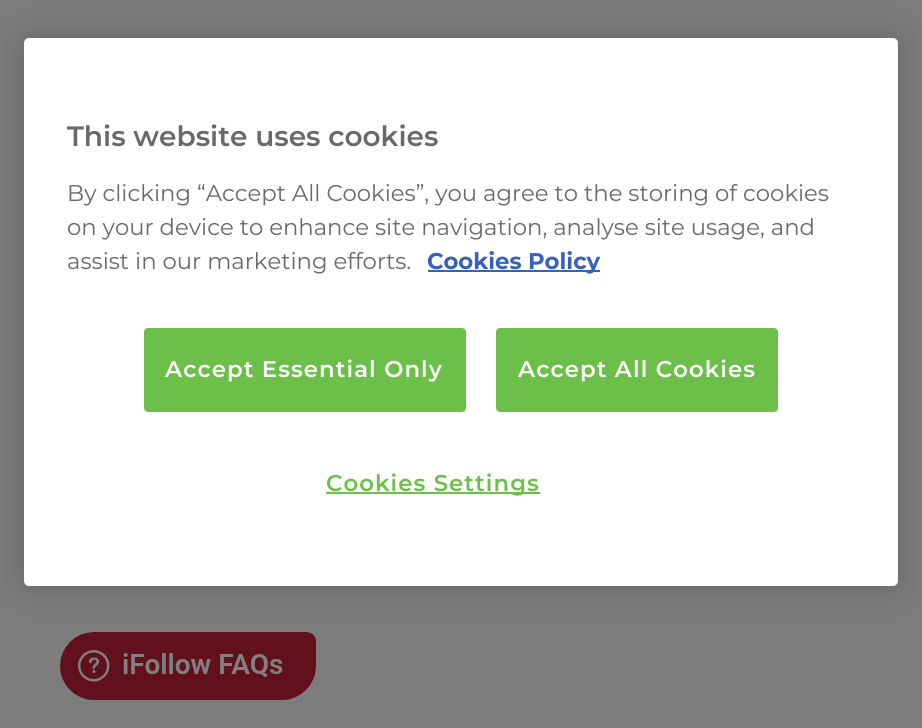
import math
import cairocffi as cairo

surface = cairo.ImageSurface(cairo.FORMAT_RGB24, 922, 728)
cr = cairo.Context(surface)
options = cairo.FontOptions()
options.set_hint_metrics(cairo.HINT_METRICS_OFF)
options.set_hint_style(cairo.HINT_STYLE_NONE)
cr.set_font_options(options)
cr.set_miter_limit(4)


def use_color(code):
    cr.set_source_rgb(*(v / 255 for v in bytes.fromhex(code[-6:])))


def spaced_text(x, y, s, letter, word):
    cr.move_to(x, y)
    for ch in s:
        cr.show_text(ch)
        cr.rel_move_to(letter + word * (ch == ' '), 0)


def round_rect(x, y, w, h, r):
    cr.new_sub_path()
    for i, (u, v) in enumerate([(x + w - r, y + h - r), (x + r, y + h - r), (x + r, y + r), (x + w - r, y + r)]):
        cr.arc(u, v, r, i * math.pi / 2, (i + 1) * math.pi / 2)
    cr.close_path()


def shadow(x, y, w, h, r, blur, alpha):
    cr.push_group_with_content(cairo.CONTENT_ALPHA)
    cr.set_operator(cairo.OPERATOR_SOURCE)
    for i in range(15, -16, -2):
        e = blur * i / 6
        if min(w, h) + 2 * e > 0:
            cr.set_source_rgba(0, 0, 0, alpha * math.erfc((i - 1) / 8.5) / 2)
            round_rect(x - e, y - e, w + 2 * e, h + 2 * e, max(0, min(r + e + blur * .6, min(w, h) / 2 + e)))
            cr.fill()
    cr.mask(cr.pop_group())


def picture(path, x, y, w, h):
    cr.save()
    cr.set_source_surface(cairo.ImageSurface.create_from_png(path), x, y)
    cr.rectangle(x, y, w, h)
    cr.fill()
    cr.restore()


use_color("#7d7d7d")
cr.paint()
picture("img1.png", 60, 632, 256, 68)
use_color("#000000")
shadow(24, 38, 874, 548, 5, 18, 0.2)
use_color("#ffffff")
round_rect(24, 38, 874, 548, 5)
cr.fill()
cr.select_font_face("Montserrat SemiBold")
cr.set_font_size(28)
use_color("#696969")
cr.move_to(67, 146)
cr.show_text("This website uses cookies")
cr.select_font_face("Montserrat")
cr.set_font_size(22.75)
cr.move_to(67, 201)
cr.show_text("By clicking “Accept All Cookies”, you agree to the storing of cookies")
cr.move_to(67, 235)
cr.show_text("on your device to enhance site navigation, analyse site usage, and")
cr.move_to(67, 269)
cr.show_text("assist in our marketing efforts.")
use_color("#3860be")
cr.rectangle(428, 270, 172, 2)
cr.fill()
cr.select_font_face("Montserrat", cairo.FONT_SLANT_NORMAL, cairo.FONT_WEIGHT_BOLD)
cr.move_to(427, 269)
cr.show_text("Cookies Policy")
use_color("#6cc04a")
round_rect(145, 329, 320, 82, 3)
cr.fill_preserve()
cr.stroke()
cr.select_font_face("Montserrat SemiBold")
use_color("#ffffff")
spaced_text(165, 377, "Accept Essential Only", 1.1, 0)
use_color("#6cc04a")
round_rect(497, 329, 280, 82, 3)
cr.fill_preserve()
cr.stroke()
use_color("#ffffff")
spaced_text(518, 377, "Accept All Cookies", 1.1, 0)
use_color("#6cc04a")
cr.rectangle(326, 492, 214, 2)
cr.fill()
spaced_text(326, 491, "Cookies Settings", 1.1, 0)
surface.write_to_png("result.png")
